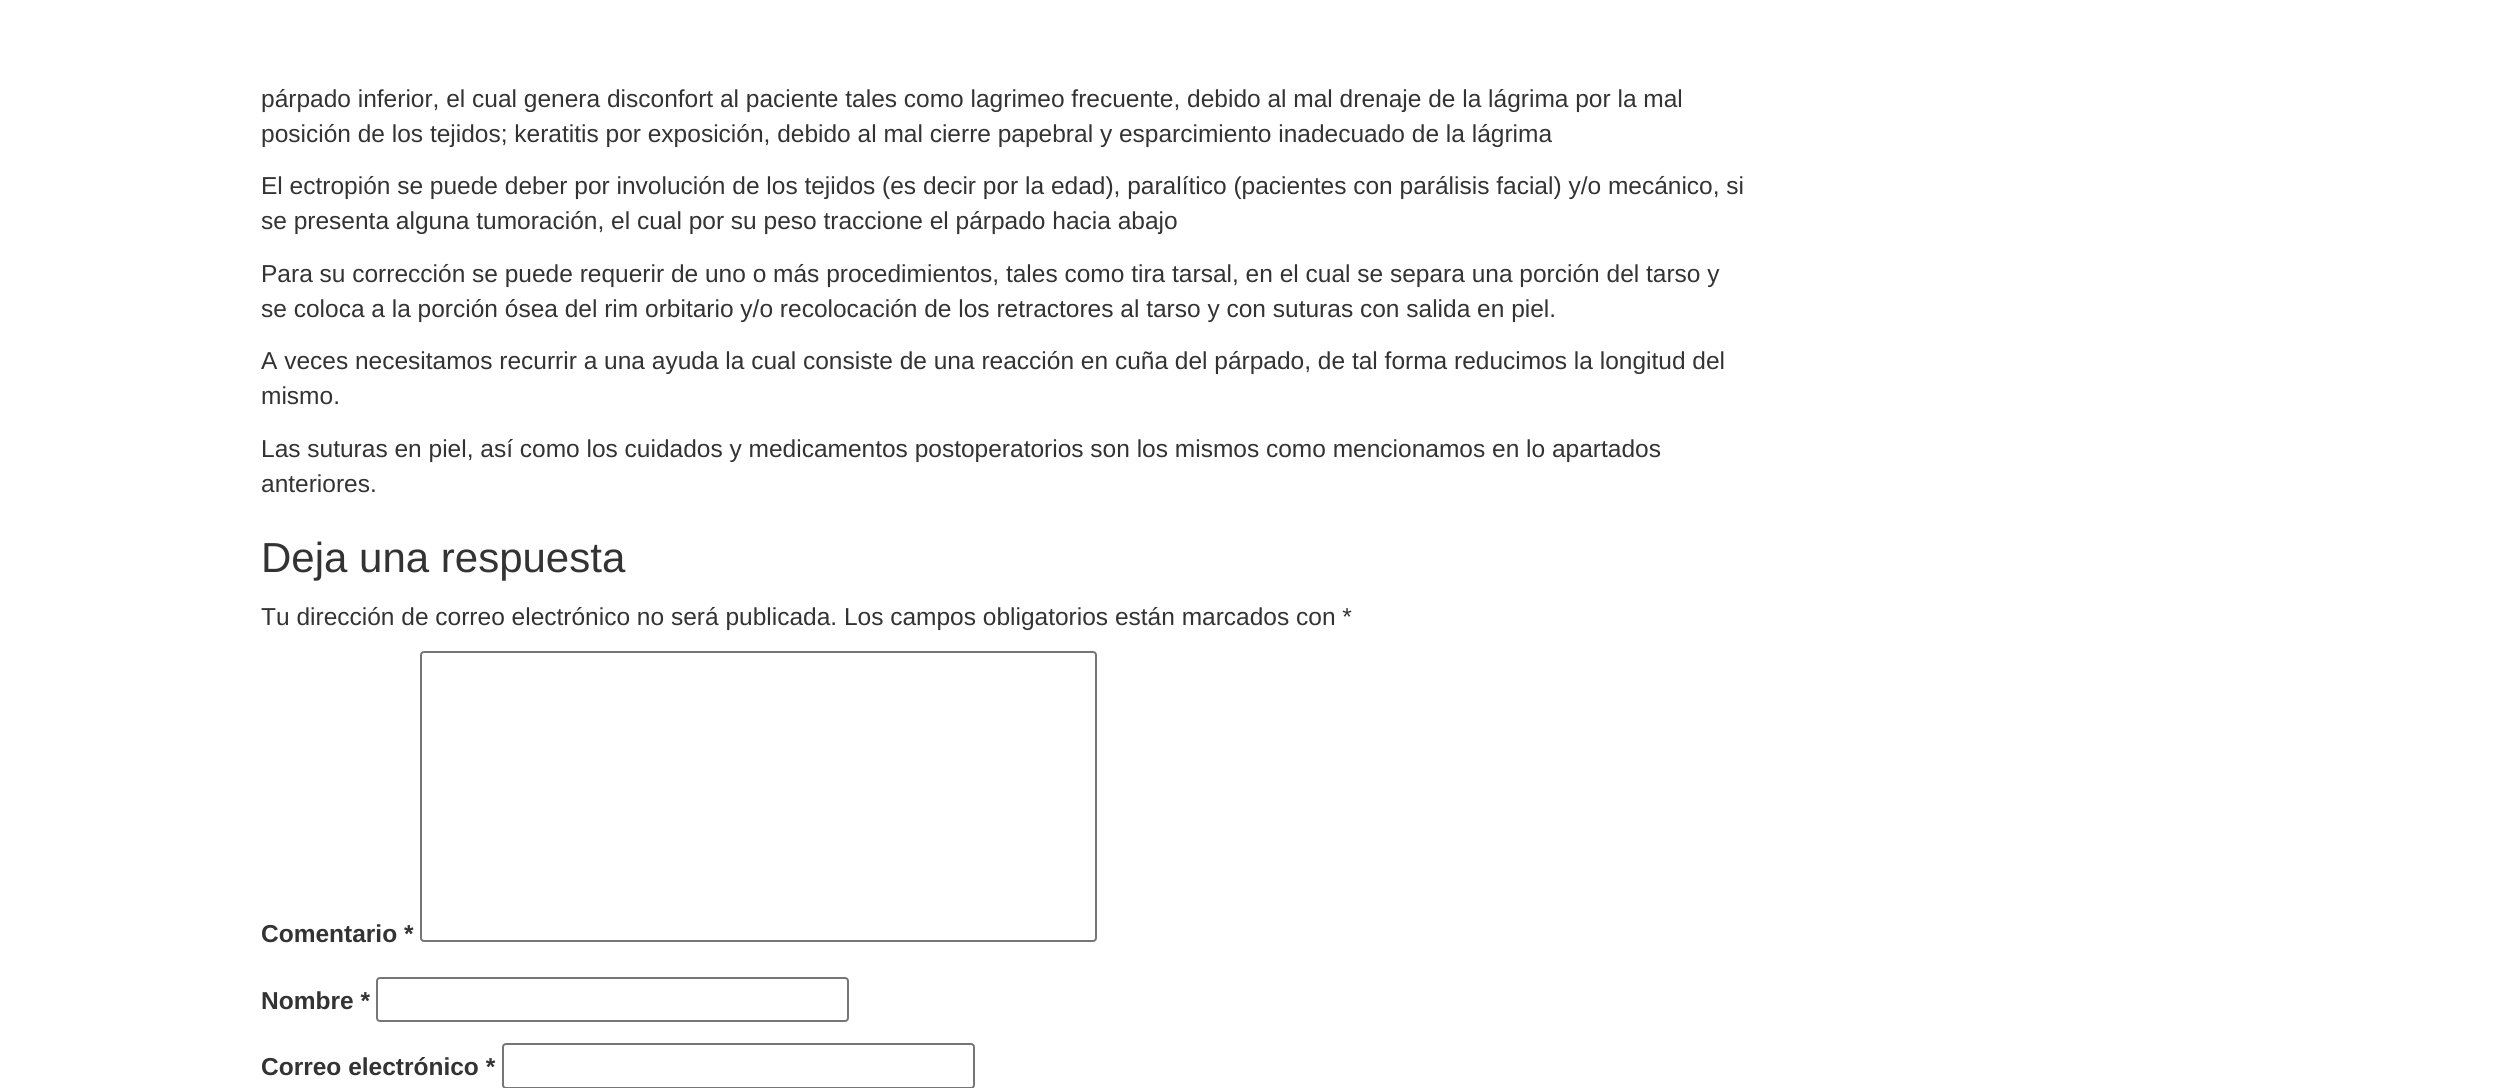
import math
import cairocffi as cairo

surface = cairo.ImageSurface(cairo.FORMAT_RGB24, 2515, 1088)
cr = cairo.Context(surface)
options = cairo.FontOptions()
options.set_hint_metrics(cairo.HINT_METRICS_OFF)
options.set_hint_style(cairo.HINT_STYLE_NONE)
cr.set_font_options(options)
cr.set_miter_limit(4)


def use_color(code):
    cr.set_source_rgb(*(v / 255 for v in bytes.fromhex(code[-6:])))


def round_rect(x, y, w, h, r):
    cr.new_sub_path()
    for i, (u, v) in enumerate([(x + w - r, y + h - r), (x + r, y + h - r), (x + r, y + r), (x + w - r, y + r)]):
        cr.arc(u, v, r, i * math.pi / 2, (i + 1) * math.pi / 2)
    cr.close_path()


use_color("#ffffff")
cr.paint()
cr.select_font_face("Liberation Sans")
cr.set_font_size(24.5)
use_color("#333333")
cr.move_to(261, 107)
cr.show_text("párpado inferior, el cual genera disconfort al paciente tales como lagrimeo frecuente, debido al mal drenaje de la lágrima por la mal")
cr.move_to(261, 142)
cr.show_text("posición de los tejidos; keratitis por exposición, debido al mal cierre papebral y esparcimiento inadecuado de la lágrima")
cr.move_to(261, 194)
cr.show_text("El ectropión se puede deber por involución de los tejidos (es decir por la edad), paralítico (pacientes con parálisis facial) y/o mecánico, si")
cr.move_to(261, 229)
cr.show_text("se presenta alguna tumoración, el cual por su peso traccione el párpado hacia abajo")
cr.move_to(261, 282)
cr.show_text("Para su corrección se puede requerir de uno o más procedimientos, tales como tira tarsal, en el cual se separa una porción del tarso y")
cr.move_to(261, 317)
cr.show_text("se coloca a la porción ósea del rim orbitario y/o recolocación de los retractores al tarso y con suturas con salida en piel.")
cr.move_to(261, 369)
cr.show_text("A veces necesitamos recurrir a una ayuda la cual consiste de una reacción en cuña del párpado, de tal forma reducimos la longitud del")
cr.move_to(261, 404)
cr.show_text("mismo.")
cr.move_to(261, 457)
cr.show_text("Las suturas en piel, así como los cuidados y medicamentos postoperatorios son los mismos como mencionamos en lo apartados")
cr.move_to(261, 492)
cr.show_text("anteriores.")
cr.set_font_size(42)
cr.move_to(261, 572)
cr.show_text("Deja una respuesta")
cr.set_font_size(24.5)
cr.move_to(261, 625)
cr.show_text("Tu dirección de correo electrónico no será publicada. Los campos obligatorios están marcados con *")
cr.select_font_face("Liberation Sans", cairo.FONT_SLANT_NORMAL, cairo.FONT_WEIGHT_BOLD)
cr.move_to(261, 942)
cr.show_text("Comentario *")
round_rect(421, 652, 675, 289, 3)
use_color("#767676")
cr.stroke()
use_color("#333333")
cr.move_to(261, 1009)
cr.show_text("Nombre *")
round_rect(377, 978, 471, 43, 3)
use_color("#767676")
cr.stroke()
use_color("#333333")
cr.move_to(261, 1075)
cr.show_text("Correo electrónico *")
round_rect(503, 1044, 471, 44, 3)
use_color("#767676")
cr.stroke()
surface.write_to_png("result.png")
